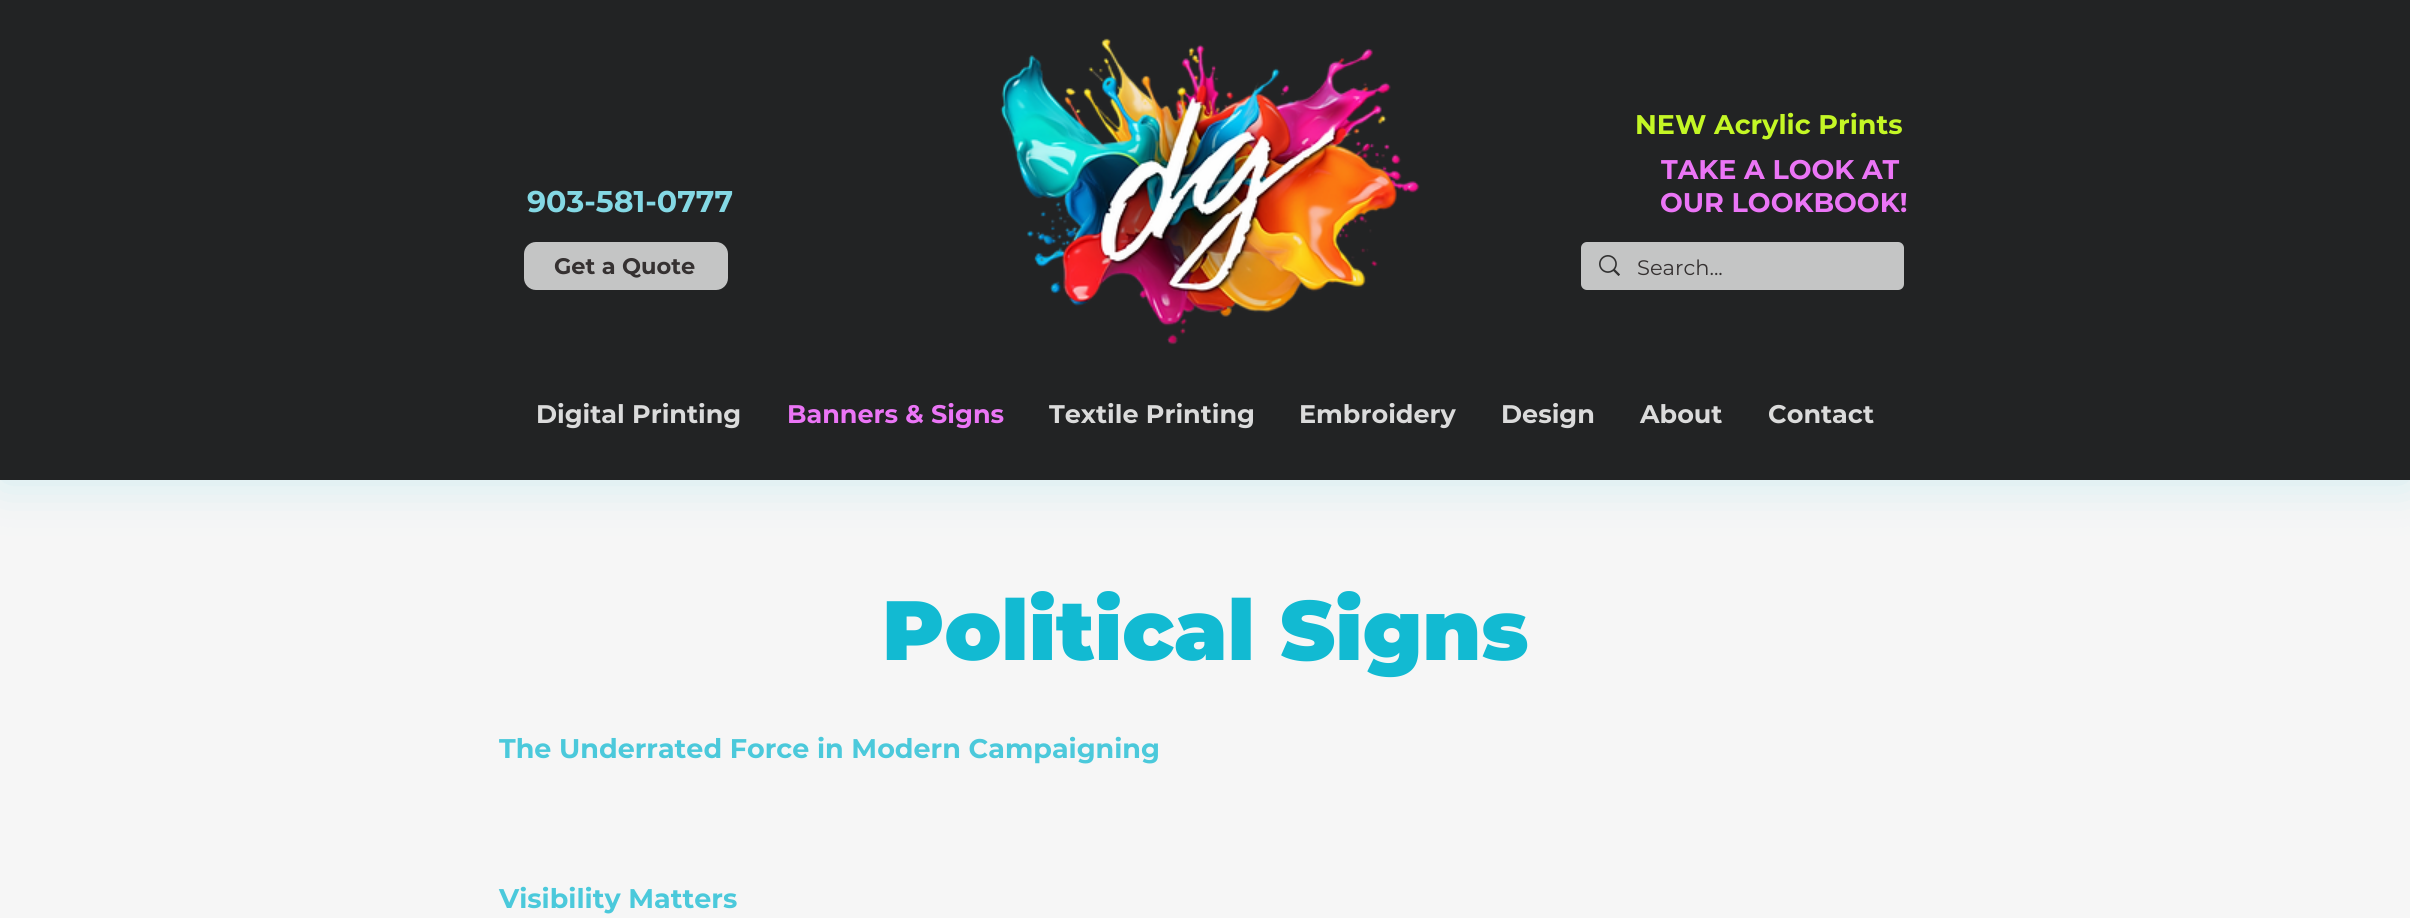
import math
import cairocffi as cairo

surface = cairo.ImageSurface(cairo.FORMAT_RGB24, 2410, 918)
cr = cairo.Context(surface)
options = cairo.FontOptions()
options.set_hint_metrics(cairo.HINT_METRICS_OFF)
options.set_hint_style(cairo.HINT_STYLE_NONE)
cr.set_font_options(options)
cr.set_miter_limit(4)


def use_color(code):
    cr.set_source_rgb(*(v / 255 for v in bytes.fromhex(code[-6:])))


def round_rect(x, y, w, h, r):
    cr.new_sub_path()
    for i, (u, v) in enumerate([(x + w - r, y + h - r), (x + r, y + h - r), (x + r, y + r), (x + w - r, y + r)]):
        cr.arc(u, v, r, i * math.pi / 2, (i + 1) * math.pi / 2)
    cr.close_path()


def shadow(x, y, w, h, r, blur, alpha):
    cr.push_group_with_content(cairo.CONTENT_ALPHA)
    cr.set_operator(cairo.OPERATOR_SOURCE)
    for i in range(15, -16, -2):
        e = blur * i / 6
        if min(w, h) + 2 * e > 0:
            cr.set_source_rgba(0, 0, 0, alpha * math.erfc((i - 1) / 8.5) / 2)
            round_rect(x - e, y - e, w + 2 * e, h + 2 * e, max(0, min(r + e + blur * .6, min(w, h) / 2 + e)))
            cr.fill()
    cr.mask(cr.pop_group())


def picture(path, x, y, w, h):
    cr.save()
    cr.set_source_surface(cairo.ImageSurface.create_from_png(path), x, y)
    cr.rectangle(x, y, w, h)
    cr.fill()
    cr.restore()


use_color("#f6f6f6")
cr.paint()
use_color("#12bad2")
shadow(0, 2, 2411, 480, 0, 25, 0.17)
use_color("#222324")
cr.rectangle(0, 0, 2410, 480)
cr.fill()
picture("img1.png", 1000, 38, 420, 307)
cr.select_font_face("Montserrat", cairo.FONT_SLANT_NORMAL, cairo.FONT_WEIGHT_BOLD)
cr.set_font_size(27)
use_color("#c4f725")
cr.move_to(1635, 134)
cr.show_text("NEW Acrylic Prints")
cr.set_font_size(30)
use_color("#84d8e4")
cr.move_to(527, 212)
cr.show_text("903-581-0777")
cr.set_font_size(27)
use_color("#eb75f6")
cr.move_to(1661, 179)
cr.show_text("TAKE A LOOK AT")
cr.move_to(1660, 212)
cr.show_text("OUR LOOKBOOK!")
use_color("#c4c5c5")
round_rect(524, 242, 204, 48, 12)
cr.fill()
cr.set_font_size(22.5)
use_color("#353131")
cr.move_to(554, 274)
cr.show_text("Get a Quote")
use_color("#c4c5c5")
round_rect(1581, 242, 323, 48, 6)
cr.fill()
picture("img2.png", 1599, 255, 21, 21)
cr.select_font_face("Montserrat")
cr.set_font_size(21)
use_color("#353131")
cr.move_to(1637, 275)
cr.show_text("Search...")
cr.select_font_face("Montserrat", cairo.FONT_SLANT_NORMAL, cairo.FONT_WEIGHT_BOLD)
cr.set_font_size(25.5)
use_color("#dbdbdb")
cr.move_to(536, 423)
cr.show_text("Digital Printing")
use_color("#eb75f6")
cr.move_to(787, 423)
cr.show_text("Banners & Signs")
use_color("#dbdbdb")
cr.move_to(1049, 423)
cr.show_text("Textile Printing")
cr.move_to(1299, 423)
cr.show_text("Embroidery")
cr.move_to(1501, 423)
cr.show_text("Design")
cr.move_to(1640, 423)
cr.show_text("About")
cr.move_to(1768, 423)
cr.show_text("Contact")
cr.select_font_face("Montserrat Thin")
cr.set_font_size(84)
use_color("#12bad2")
cr.move_to(882, 660)
cr.show_text("Political Signs")
cr.select_font_face("Montserrat", cairo.FONT_SLANT_NORMAL, cairo.FONT_WEIGHT_BOLD)
cr.set_font_size(27)
use_color("#4bc9db")
cr.move_to(499, 758)
cr.show_text("The Underrated Force in Modern Campaigning")
cr.move_to(499, 908)
cr.show_text("Visibility Matters")
surface.write_to_png("result.png")
